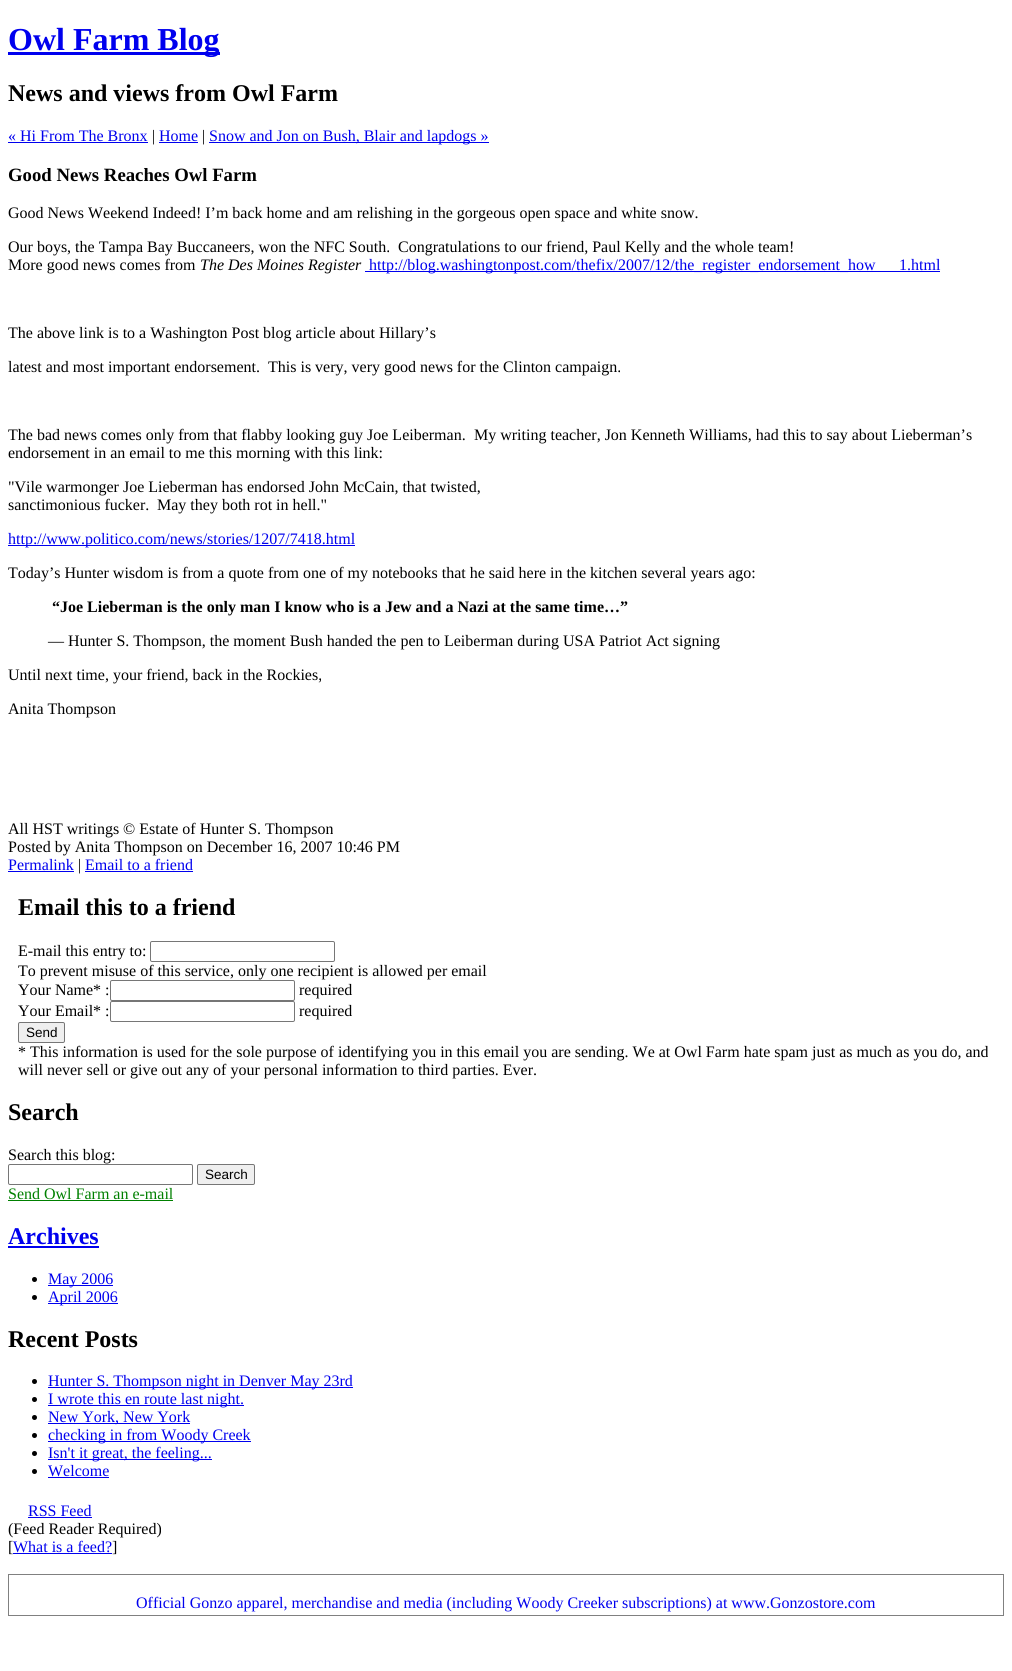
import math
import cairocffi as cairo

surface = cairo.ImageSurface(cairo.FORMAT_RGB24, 1012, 1671)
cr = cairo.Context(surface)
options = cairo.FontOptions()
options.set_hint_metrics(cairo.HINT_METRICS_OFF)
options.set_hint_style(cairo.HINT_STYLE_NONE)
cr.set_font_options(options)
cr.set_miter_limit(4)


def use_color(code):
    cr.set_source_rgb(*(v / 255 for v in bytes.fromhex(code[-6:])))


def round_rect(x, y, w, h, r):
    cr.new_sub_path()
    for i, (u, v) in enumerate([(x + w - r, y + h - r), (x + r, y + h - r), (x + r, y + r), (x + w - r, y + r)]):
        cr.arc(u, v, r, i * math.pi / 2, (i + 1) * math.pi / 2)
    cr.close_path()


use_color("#ffffff")
cr.paint()
use_color("#0000ee")
cr.rectangle(8, 52, 212, 3)
cr.fill()
cr.select_font_face("Liberation Serif", cairo.FONT_SLANT_NORMAL, cairo.FONT_WEIGHT_BOLD)
cr.set_font_size(32)
cr.move_to(8, 50)
cr.show_text("Owl Farm Blog")
cr.set_font_size(24)
use_color("#000000")
cr.move_to(8, 101)
cr.show_text("News and views from Owl Farm")
cr.select_font_face("Liberation Serif")
cr.set_font_size(16)
use_color("#0000ee")
cr.move_to(8, 141)
cr.show_text("« Hi From The Bronx")
cr.rectangle(8, 142, 140, 1)
cr.fill()
use_color("#000000")
cr.move_to(152, 141)
cr.show_text("|")
use_color("#0000ee")
cr.move_to(159, 141)
cr.show_text("Home")
cr.rectangle(159, 142, 39, 1)
cr.fill()
use_color("#000000")
cr.move_to(202, 141)
cr.show_text("|")
use_color("#0000ee")
cr.rectangle(209, 142, 280, 1)
cr.fill()
cr.move_to(209, 141)
cr.show_text("Snow and Jon on Bush, Blair and lapdogs »")
cr.select_font_face("Liberation Serif", cairo.FONT_SLANT_NORMAL, cairo.FONT_WEIGHT_BOLD)
cr.set_font_size(18.75)
use_color("#000000")
cr.move_to(8, 181)
cr.show_text("Good News Reaches Owl Farm")
cr.select_font_face("Liberation Serif")
cr.set_font_size(16)
cr.move_to(8, 218)
cr.show_text("Good News Weekend Indeed! I’m back home and am relishing in the gorgeous open space and white snow.")
cr.move_to(8, 252)
cr.show_text("Our boys, the Tampa Bay Buccaneers, won the NFC South.")
cr.move_to(398, 252)
cr.show_text("Congratulations to our friend, Paul Kelly and the whole team!")
cr.move_to(8, 270)
cr.show_text("More good news comes from")
cr.select_font_face("Liberation Serif", cairo.FONT_SLANT_ITALIC)
cr.move_to(200, 270)
cr.show_text("The Des Moines Register")
use_color("#0000ee")
cr.rectangle(365, 271, 575, 1)
cr.fill()
cr.select_font_face("Liberation Serif")
cr.move_to(369, 270)
cr.show_text("http://blog.washingtonpost.com/thefix/2007/12/the_register_endorsement_how")
cr.move_to(899, 270)
cr.show_text("1.html")
use_color("#000000")
cr.move_to(8, 338)
cr.show_text("The above link is to a Washington Post blog article about Hillary’s")
cr.move_to(8, 372)
cr.show_text("latest and most important endorsement.")
cr.move_to(268, 372)
cr.show_text("This is very, very good news for the Clinton campaign.")
cr.move_to(8, 440)
cr.show_text("The bad news comes only from that flabby looking guy Joe Leiberman.")
cr.move_to(474, 440)
cr.show_text("My writing teacher, Jon Kenneth Williams, had this to say about Lieberman’s")
cr.move_to(8, 458)
cr.show_text("endorsement in an email to me this morning with this link:")
cr.move_to(8, 492)
cr.show_text("\"Vile warmonger Joe Lieberman has endorsed John McCain, that twisted,")
cr.move_to(8, 510)
cr.show_text("sanctimonious fucker.")
cr.move_to(157, 510)
cr.show_text("May they both rot in hell.\"")
use_color("#0000ee")
cr.rectangle(8, 545, 347, 1)
cr.fill()
cr.move_to(8, 544)
cr.show_text("http://www.politico.com/news/stories/1207/7418.html")
use_color("#000000")
cr.move_to(8, 578)
cr.show_text("Today’s Hunter wisdom is from a quote from one of my notebooks that he said here in the kitchen several years ago:")
cr.select_font_face("Liberation Serif", cairo.FONT_SLANT_NORMAL, cairo.FONT_WEIGHT_BOLD)
cr.move_to(52, 612)
cr.show_text("“Joe Lieberman is the only man I know who is a Jew and a Nazi at the same time…”")
cr.select_font_face("Liberation Serif")
cr.move_to(48, 646)
cr.show_text("— Hunter S. Thompson, the moment Bush handed the pen to Leiberman during USA Patriot Act signing")
cr.move_to(8, 680)
cr.show_text("Until next time, your friend, back in the Rockies,")
cr.move_to(8, 714)
cr.show_text("Anita Thompson")
cr.move_to(8, 834)
cr.show_text("All HST writings © Estate of Hunter S. Thompson")
cr.move_to(8, 852)
cr.show_text("Posted by Anita Thompson on December 16, 2007 10:46 PM")
use_color("#0000ee")
cr.move_to(8, 870)
cr.show_text("Permalink")
cr.rectangle(8, 871, 66, 1)
cr.fill()
use_color("#000000")
cr.move_to(78, 870)
cr.show_text("|")
use_color("#0000ee")
cr.move_to(85, 870)
cr.show_text("Email to a friend")
cr.rectangle(85, 871, 108, 1)
cr.fill()
cr.select_font_face("Liberation Serif", cairo.FONT_SLANT_NORMAL, cairo.FONT_WEIGHT_BOLD)
cr.set_font_size(24)
use_color("#000000")
cr.move_to(18, 915)
cr.show_text("Email this to a friend")
cr.select_font_face("Liberation Serif")
cr.set_font_size(16)
cr.move_to(18, 956)
cr.show_text("E-mail this entry to:")
round_rect(150.5, 941.5, 184, 20, 1.5)
use_color("#767676")
cr.set_line_width(1)
cr.stroke()
use_color("#000000")
cr.move_to(18, 976)
cr.show_text("To prevent misuse of this service, only one recipient is allowed per email")
cr.move_to(18, 995)
cr.show_text("Your Name* :")
round_rect(110.5, 980.5, 184, 20, 1.5)
use_color("#767676")
cr.stroke()
use_color("#000000")
cr.move_to(299, 995)
cr.show_text("required")
cr.move_to(18, 1016)
cr.show_text("Your Email* :")
round_rect(110.5, 1001.5, 184, 20, 1.5)
use_color("#767676")
cr.stroke()
use_color("#000000")
cr.move_to(299, 1016)
cr.show_text("required")
use_color("#efefef")
round_rect(18.5, 1022.5, 46, 20, 1.5)
cr.fill_preserve()
use_color("#767676")
cr.stroke()
cr.select_font_face("Liberation Sans")
cr.set_font_size(13.5)
use_color("#000000")
cr.move_to(26, 1037)
cr.show_text("Send")
cr.select_font_face("Liberation Serif")
cr.set_font_size(16)
cr.move_to(18, 1057)
cr.show_text("* This information is used for the sole purpose of identifying you in this email you are sending. We at Owl Farm hate spam just as much as you do, and")
cr.move_to(18, 1075)
cr.show_text("will never sell or give out any of your personal information to third parties. Ever.")
cr.select_font_face("Liberation Serif", cairo.FONT_SLANT_NORMAL, cairo.FONT_WEIGHT_BOLD)
cr.set_font_size(24)
cr.move_to(8, 1120)
cr.show_text("Search")
cr.select_font_face("Liberation Serif")
cr.set_font_size(16)
cr.move_to(8, 1160)
cr.show_text("Search this blog:")
round_rect(8.5, 1164.5, 184, 20, 1.5)
use_color("#767676")
cr.stroke()
use_color("#efefef")
round_rect(197.5, 1164.5, 57, 20, 1.5)
cr.fill_preserve()
use_color("#767676")
cr.stroke()
cr.select_font_face("Liberation Sans")
cr.set_font_size(13.5)
use_color("#000000")
cr.move_to(205, 1179)
cr.show_text("Search")
cr.select_font_face("Liberation Serif")
cr.set_font_size(16)
use_color("#008000")
cr.move_to(8, 1199)
cr.show_text("Send Owl Farm an e-mail")
cr.rectangle(8, 1200, 165, 1)
cr.fill()
cr.select_font_face("Liberation Serif", cairo.FONT_SLANT_NORMAL, cairo.FONT_WEIGHT_BOLD)
cr.set_font_size(24)
use_color("#0000ee")
cr.move_to(8, 1244)
cr.show_text("Archives")
cr.rectangle(8, 1246, 91, 2)
cr.fill()
use_color("#000000")
cr.arc(34.5, 1279.5, 2.5, 0, 2 * math.pi)
cr.fill()
use_color("#0000ee")
cr.rectangle(48, 1285, 65, 1)
cr.fill()
cr.select_font_face("Liberation Serif")
cr.set_font_size(16)
cr.move_to(48, 1284)
cr.show_text("May 2006")
use_color("#000000")
cr.new_path()
cr.arc(34.5, 1297.5, 2.5, 0, 2 * math.pi)
cr.fill()
use_color("#0000ee")
cr.rectangle(48, 1303, 70, 1)
cr.fill()
cr.move_to(48, 1302)
cr.show_text("April 2006")
cr.select_font_face("Liberation Serif", cairo.FONT_SLANT_NORMAL, cairo.FONT_WEIGHT_BOLD)
cr.set_font_size(24)
use_color("#000000")
cr.move_to(8, 1347)
cr.show_text("Recent Posts")
cr.new_path()
cr.arc(34.5, 1381.5, 2.5, 0, 2 * math.pi)
cr.fill()
use_color("#0000ee")
cr.rectangle(48, 1387, 305, 1)
cr.fill()
cr.select_font_face("Liberation Serif")
cr.set_font_size(16)
cr.move_to(48, 1386)
cr.show_text("Hunter S. Thompson night in Denver May 23rd")
use_color("#000000")
cr.new_path()
cr.arc(34.5, 1399.5, 2.5, 0, 2 * math.pi)
cr.fill()
use_color("#0000ee")
cr.rectangle(48, 1405, 196, 1)
cr.fill()
cr.move_to(48, 1404)
cr.show_text("I wrote this en route last night.")
use_color("#000000")
cr.new_path()
cr.arc(34.5, 1417.5, 2.5, 0, 2 * math.pi)
cr.fill()
use_color("#0000ee")
cr.rectangle(48, 1423, 142, 1)
cr.fill()
cr.move_to(48, 1422)
cr.show_text("New York, New York")
use_color("#000000")
cr.new_path()
cr.arc(34.5, 1435.5, 2.5, 0, 2 * math.pi)
cr.fill()
use_color("#0000ee")
cr.rectangle(48, 1441, 203, 1)
cr.fill()
cr.move_to(48, 1440)
cr.show_text("checking in from Woody Creek")
use_color("#000000")
cr.new_path()
cr.arc(34.5, 1453.5, 2.5, 0, 2 * math.pi)
cr.fill()
use_color("#0000ee")
cr.rectangle(48, 1459, 164, 1)
cr.fill()
cr.move_to(48, 1458)
cr.show_text("Isn't it great, the feeling...")
use_color("#000000")
cr.new_path()
cr.arc(34.5, 1471.5, 2.5, 0, 2 * math.pi)
cr.fill()
use_color("#0000ee")
cr.move_to(48, 1476)
cr.show_text("Welcome")
cr.rectangle(48, 1477, 61, 1)
cr.fill()
cr.move_to(28, 1516)
cr.show_text("RSS Feed")
cr.rectangle(28, 1517, 64, 1)
cr.fill()
use_color("#000000")
cr.move_to(8, 1534)
cr.show_text("(Feed Reader Required)")
cr.move_to(8, 1552)
cr.show_text("[")
use_color("#0000ee")
cr.move_to(13, 1552)
cr.show_text("What is a feed?")
cr.rectangle(13, 1553, 99, 1)
cr.fill()
use_color("#000000")
cr.move_to(112, 1552)
cr.show_text("]")
cr.rectangle(8.5, 1574.5, 995, 41)
use_color("#808080")
cr.stroke()
use_color("#0000ee")
cr.move_to(136, 1608)
cr.show_text("Official Gonzo apparel, merchandise and media (including Woody Creeker subscriptions) at www.Gonzostore.com")
surface.write_to_png("result.png")
